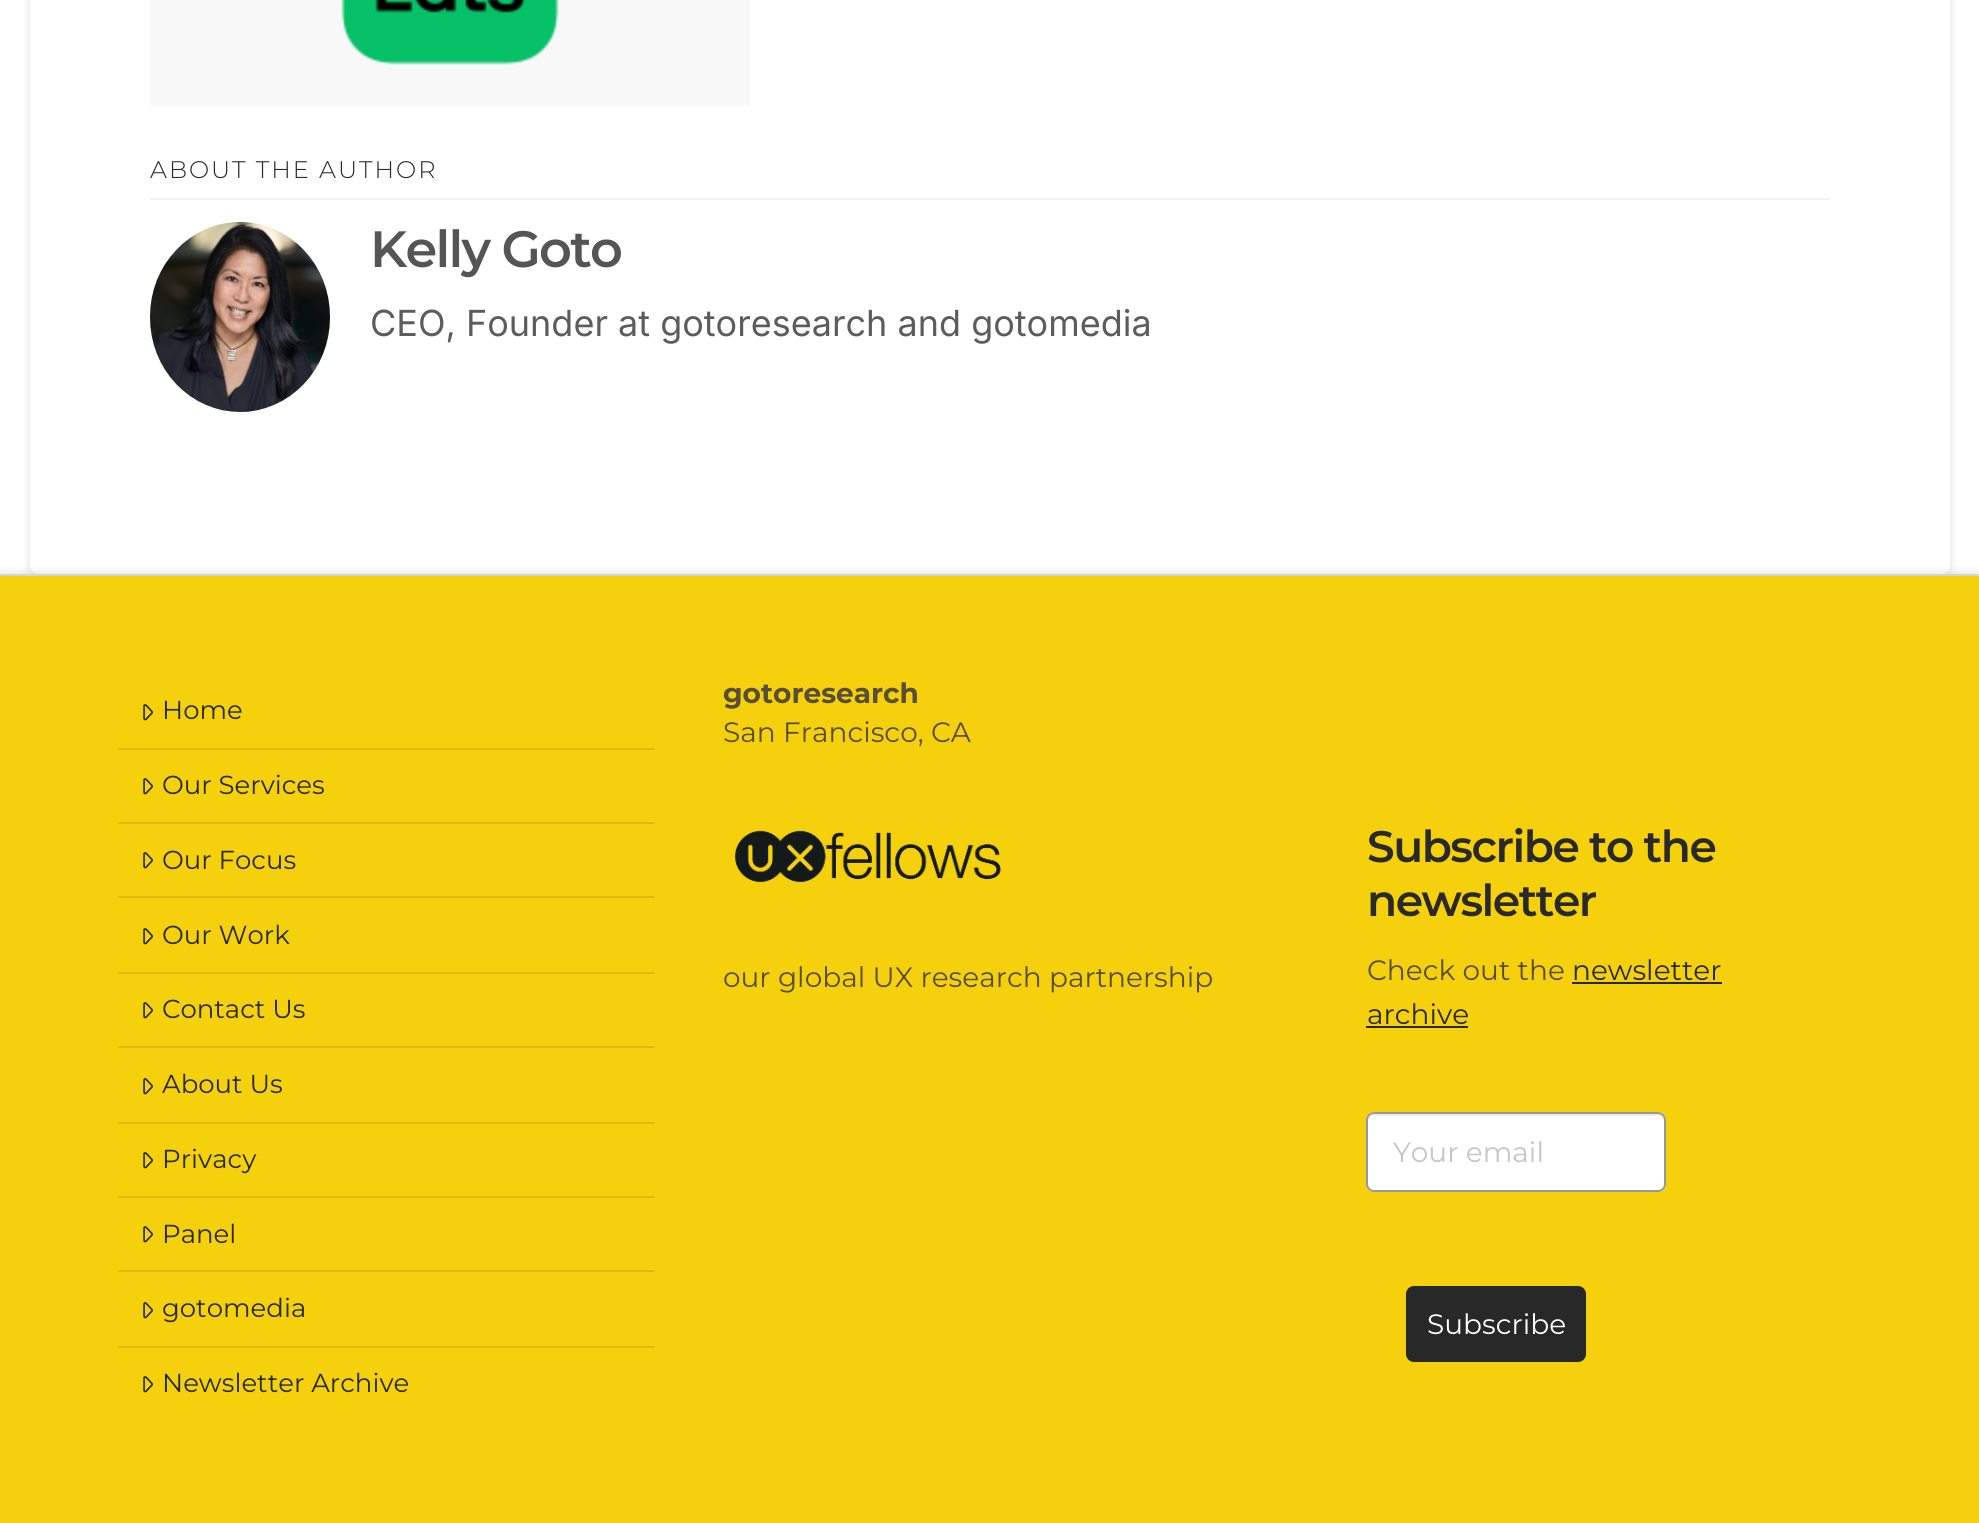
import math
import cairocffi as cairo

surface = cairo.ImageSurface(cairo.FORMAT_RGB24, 1979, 1523)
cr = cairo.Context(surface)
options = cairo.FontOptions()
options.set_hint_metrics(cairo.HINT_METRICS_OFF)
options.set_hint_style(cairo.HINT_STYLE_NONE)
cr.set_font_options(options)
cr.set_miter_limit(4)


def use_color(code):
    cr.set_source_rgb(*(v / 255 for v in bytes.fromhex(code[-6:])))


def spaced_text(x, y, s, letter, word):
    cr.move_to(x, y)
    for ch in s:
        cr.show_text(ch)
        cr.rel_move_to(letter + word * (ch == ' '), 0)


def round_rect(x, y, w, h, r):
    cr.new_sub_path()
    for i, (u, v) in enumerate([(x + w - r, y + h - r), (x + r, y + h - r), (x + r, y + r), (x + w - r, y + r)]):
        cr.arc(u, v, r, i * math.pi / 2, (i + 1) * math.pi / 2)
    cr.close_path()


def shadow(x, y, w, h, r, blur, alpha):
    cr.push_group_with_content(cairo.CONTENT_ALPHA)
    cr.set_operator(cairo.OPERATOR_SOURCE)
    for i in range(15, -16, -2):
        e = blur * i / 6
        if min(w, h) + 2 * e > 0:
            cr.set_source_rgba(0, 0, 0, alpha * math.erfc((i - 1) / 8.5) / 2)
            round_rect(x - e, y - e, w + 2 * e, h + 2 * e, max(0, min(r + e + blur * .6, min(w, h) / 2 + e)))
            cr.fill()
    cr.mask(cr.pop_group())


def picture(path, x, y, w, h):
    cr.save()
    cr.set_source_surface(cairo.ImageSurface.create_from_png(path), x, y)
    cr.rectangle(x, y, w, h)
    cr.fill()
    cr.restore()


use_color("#ffffff")
cr.paint()
use_color("#000000")
shadow(30, -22, 1920, 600, 8, 4.5, 0.13)
use_color("#ffffff")
round_rect(30, -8, 1920, 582, 8)
cr.fill()
picture("img1.png", 150, 0, 600, 106)
use_color("#f2f2f2")
cr.rectangle(150, 198, 1680, 2)
cr.fill()
cr.select_font_face("Montserrat Light")
cr.set_font_size(24)
use_color("#292929")
spaced_text(150, 178, "ABOUT THE AUTHOR", 2, 0)
picture("img2.png", 150, 222, 180, 190)
cr.select_font_face("Montserrat SemiBold")
cr.set_font_size(51)
use_color("#555555")
spaced_text(370, 267, "Kelly Goto", -1.75, 0)
cr.select_font_face("Inter")
cr.set_font_size(36)
use_color("#5c5c5c")
cr.move_to(370, 336)
cr.show_text("CEO, Founder at gotoresearch and gotomedia")
use_color("#000000")
shadow(0, 570, 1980, 950, 0, 3, 0.07)
use_color("#f5d00d")
cr.rectangle(0, 576, 1979, 947)
cr.fill()
use_color("#d4d4d4")
cr.rectangle(0, 574, 1979, 2)
cr.fill()
use_color("#ddbb0c")
cr.rectangle(118, 748, 536, 2)
cr.fill()
picture("img3.png", 143, 704, 10, 17)
cr.select_font_face("Montserrat Thin")
cr.set_font_size(26)
use_color("#292929")
cr.move_to(162, 719)
cr.show_text("Home")
use_color("#ddbb0c")
cr.rectangle(118, 822, 536, 2)
cr.fill()
picture("img3.png", 143, 778, 10, 17)
use_color("#292929")
cr.move_to(162, 794)
cr.show_text("Our Services")
use_color("#ddbb0c")
cr.rectangle(118, 896, 536, 2)
cr.fill()
picture("img3.png", 143, 852, 10, 17)
use_color("#292929")
cr.move_to(162, 869)
cr.show_text("Our Focus")
use_color("#ddbb0c")
cr.rectangle(118, 972, 536, 2)
cr.fill()
picture("img3.png", 143, 928, 10, 17)
use_color("#292929")
cr.move_to(162, 944)
cr.show_text("Our Work")
use_color("#ddbb0c")
cr.rectangle(118, 1046, 536, 2)
cr.fill()
picture("img3.png", 143, 1002, 10, 17)
use_color("#292929")
cr.move_to(162, 1018)
cr.show_text("Contact Us")
use_color("#ddbb0c")
cr.rectangle(118, 1122, 536, 2)
cr.fill()
picture("img3.png", 143, 1078, 10, 17)
use_color("#292929")
cr.move_to(162, 1093)
cr.show_text("About Us")
use_color("#ddbb0c")
cr.rectangle(118, 1196, 536, 2)
cr.fill()
picture("img3.png", 143, 1152, 10, 17)
use_color("#292929")
cr.move_to(162, 1168)
cr.show_text("Privacy")
use_color("#ddbb0c")
cr.rectangle(118, 1270, 536, 2)
cr.fill()
picture("img3.png", 143, 1226, 10, 17)
use_color("#292929")
cr.move_to(162, 1243)
cr.show_text("Panel")
use_color("#ddbb0c")
cr.rectangle(118, 1346, 536, 2)
cr.fill()
picture("img3.png", 143, 1302, 10, 17)
use_color("#292929")
cr.move_to(162, 1317)
cr.show_text("gotomedia")
picture("img3.png", 143, 1376, 10, 17)
cr.move_to(162, 1392)
cr.show_text("Newsletter Archive")
cr.select_font_face("Montserrat", cairo.FONT_SLANT_NORMAL, cairo.FONT_WEIGHT_BOLD)
cr.set_font_size(28)
use_color("#584e38")
cr.move_to(723, 703)
cr.show_text("gotoresearch")
cr.select_font_face("Montserrat Thin")
cr.move_to(723, 742)
cr.show_text("San Francisco, CA")
picture("img4.png", 735, 830, 266, 53)
cr.move_to(723, 987)
cr.show_text("our global UX research partnership")
cr.select_font_face("Montserrat SemiBold")
cr.set_font_size(44)
use_color("#292929")
spaced_text(1367, 862, "Subscribe to the", -1.5, 0)
spaced_text(1367, 916, "newsletter", -1.5, 0)
cr.select_font_face("Montserrat Thin")
cr.set_font_size(28)
use_color("#584e38")
cr.move_to(1367, 980)
cr.show_text("Check out the")
use_color("#292929")
cr.move_to(1572, 980)
cr.show_text("newsletter")
use_color("#252729")
cr.rectangle(1572, 982, 150, 2)
cr.fill()
use_color("#292929")
cr.move_to(1367, 1024)
cr.show_text("archive")
use_color("#252729")
cr.rectangle(1366, 1026, 102, 2)
cr.fill()
use_color("#ffffff")
round_rect(1366, 1112, 300, 80, 8)
cr.fill()
use_color("#ececec")
cr.new_path()
cr.move_to(1374, 1116)
cr.line_to(1658, 1116)
cr.curve_to(1661, 1116, 1664, 1119, 1664, 1122)
cr.line_to(1664, 1120)
cr.curve_to(1664, 1117, 1661, 1114, 1658, 1114)
cr.line_to(1374, 1114)
cr.curve_to(1371, 1114, 1368, 1117, 1368, 1120)
cr.line_to(1368, 1122)
cr.curve_to(1368, 1119, 1371, 1116, 1374, 1116)
cr.close_path()
cr.fill()
round_rect(1367, 1113, 298, 78, 7)
use_color("#979797")
cr.stroke()
use_color("#c5c5c5")
cr.move_to(1393, 1162)
cr.show_text("Your email")
use_color("#282828")
round_rect(1406, 1286, 180, 76, 8)
cr.fill()
use_color("#ffffff")
cr.move_to(1427, 1334)
cr.show_text("Subscribe")
surface.write_to_png("result.png")
